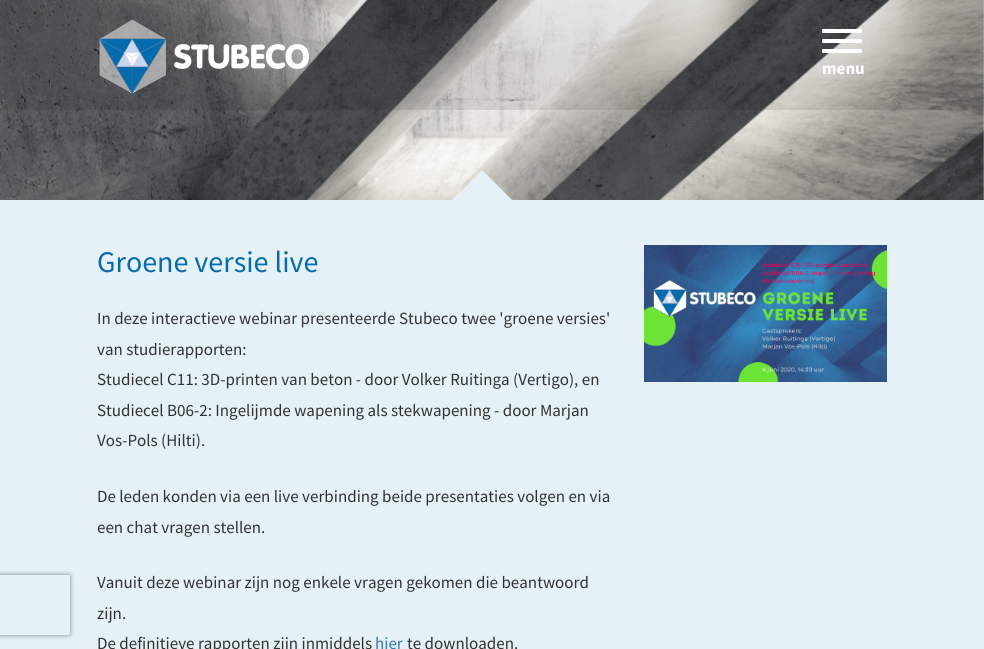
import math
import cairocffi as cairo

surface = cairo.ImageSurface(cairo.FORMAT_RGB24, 984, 649)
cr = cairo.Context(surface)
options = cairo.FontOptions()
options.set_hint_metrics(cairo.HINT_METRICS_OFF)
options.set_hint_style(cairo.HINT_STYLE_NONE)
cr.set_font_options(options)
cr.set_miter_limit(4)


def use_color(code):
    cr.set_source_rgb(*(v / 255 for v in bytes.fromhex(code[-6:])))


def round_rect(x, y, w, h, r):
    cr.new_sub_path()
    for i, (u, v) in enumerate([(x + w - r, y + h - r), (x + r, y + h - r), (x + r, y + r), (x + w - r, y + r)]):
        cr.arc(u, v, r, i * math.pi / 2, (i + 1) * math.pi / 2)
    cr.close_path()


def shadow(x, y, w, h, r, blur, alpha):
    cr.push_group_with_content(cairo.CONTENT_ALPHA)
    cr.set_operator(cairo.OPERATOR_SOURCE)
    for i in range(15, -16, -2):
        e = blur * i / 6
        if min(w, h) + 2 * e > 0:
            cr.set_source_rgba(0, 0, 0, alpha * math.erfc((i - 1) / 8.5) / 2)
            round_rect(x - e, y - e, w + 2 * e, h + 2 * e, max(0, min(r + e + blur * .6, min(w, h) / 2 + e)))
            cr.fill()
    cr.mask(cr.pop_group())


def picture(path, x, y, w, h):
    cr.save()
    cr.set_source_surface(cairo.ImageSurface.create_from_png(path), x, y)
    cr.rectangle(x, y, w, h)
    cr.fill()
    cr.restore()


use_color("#ffffff")
cr.paint()
picture("img1.png", 0, 0, 984, 200)
cr.set_source_rgba(0, 0, 0, 0.1)
cr.rectangle(0, 0, 984, 110)
cr.fill()
picture("img2.png", 99, 19, 210, 75)
use_color("#ffffff")
round_rect(822, 29, 40, 4, 1)
cr.fill()
round_rect(822, 39, 40, 4, 1)
cr.fill()
round_rect(822, 49, 40, 4, 1)
cr.fill()
cr.select_font_face("Source Sans Pro", cairo.FONT_SLANT_NORMAL, cairo.FONT_WEIGHT_BOLD)
cr.set_font_size(17)
cr.move_to(822, 74)
cr.show_text("menu")
use_color("#e5f0f7")
cr.new_path()
cr.move_to(512, 200)
cr.line_to(452, 200)
cr.line_to(482, 170)
cr.close_path()
cr.fill()
cr.rectangle(0, 200, 984, 449)
cr.fill()
cr.save()
cr.set_fill_rule(cairo.FILL_RULE_EVEN_ODD)
cr.new_path()
cr.move_to(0, 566)
cr.line_to(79, 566)
cr.line_to(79, 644)
cr.line_to(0, 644)
cr.close_path()
cr.move_to(-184, 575)
cr.line_to(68, 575)
cr.curve_to(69, 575, 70, 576, 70, 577)
cr.line_to(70, 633)
cr.curve_to(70, 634, 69, 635, 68, 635)
cr.line_to(-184, 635)
cr.curve_to(-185, 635, -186, 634, -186, 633)
cr.line_to(-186, 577)
cr.curve_to(-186, 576, -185, 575, -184, 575)
cr.close_path()
cr.clip()
use_color("#808080")
shadow(-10, 575, 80, 60, 2, 2.5, 1)
cr.restore()
cr.select_font_face("Source Sans Pro")
cr.set_font_size(30)
use_color("#036cae")
cr.move_to(97, 272)
cr.show_text("Groene versie live")
cr.set_font_size(17)
use_color("#333333")
cr.move_to(97, 324)
cr.show_text("In deze interactieve webinar presenteerde Stubeco twee 'groene versies'")
cr.move_to(97, 355)
cr.show_text("van studierapporten:")
cr.move_to(97, 385)
cr.show_text("Studiecel C11: 3D-printen van beton - door Volker Ruitinga (Vertigo), en")
cr.move_to(97, 416)
cr.show_text("Studiecel B06-2: Ingelijmde wapening als stekwapening - door Marjan")
cr.move_to(97, 446)
cr.show_text("Vos-Pols (Hilti).")
cr.move_to(97, 502)
cr.show_text("De leden konden via een live verbinding beide presentaties volgen en via")
cr.move_to(97, 533)
cr.show_text("een chat vragen stellen.")
cr.move_to(97, 588)
cr.show_text("Vanuit deze webinar zijn nog enkele vragen gekomen die beantwoord")
cr.move_to(97, 619)
cr.show_text("zijn.")
cr.move_to(97, 649)
cr.show_text("De definitieve rapporten zijn inmiddels")
use_color("#337ab7")
cr.move_to(375, 649)
cr.show_text("hier")
use_color("#333333")
cr.move_to(407, 649)
cr.show_text("te downloaden.")
picture("img3.png", 644, 245, 243, 137)
surface.write_to_png("result.png")
